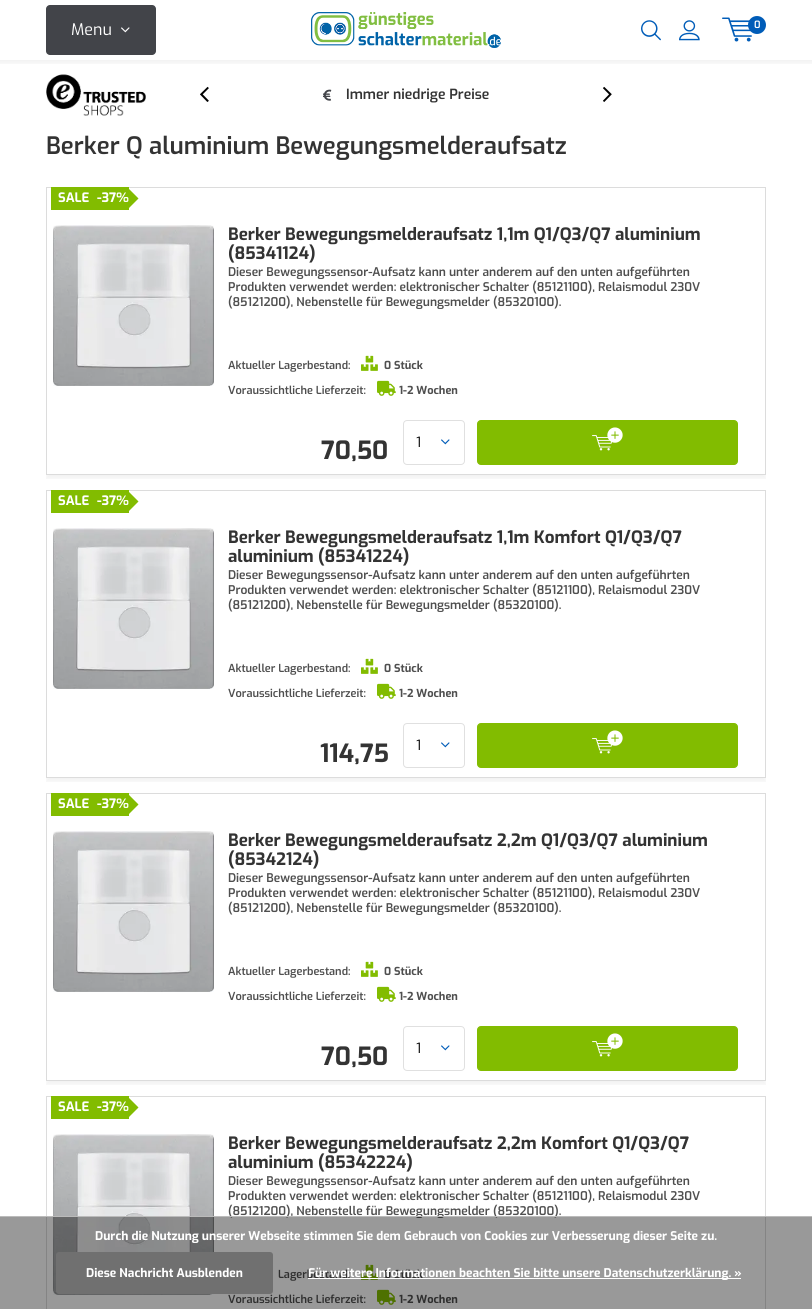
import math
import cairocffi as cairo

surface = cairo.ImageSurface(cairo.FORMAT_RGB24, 812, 1309)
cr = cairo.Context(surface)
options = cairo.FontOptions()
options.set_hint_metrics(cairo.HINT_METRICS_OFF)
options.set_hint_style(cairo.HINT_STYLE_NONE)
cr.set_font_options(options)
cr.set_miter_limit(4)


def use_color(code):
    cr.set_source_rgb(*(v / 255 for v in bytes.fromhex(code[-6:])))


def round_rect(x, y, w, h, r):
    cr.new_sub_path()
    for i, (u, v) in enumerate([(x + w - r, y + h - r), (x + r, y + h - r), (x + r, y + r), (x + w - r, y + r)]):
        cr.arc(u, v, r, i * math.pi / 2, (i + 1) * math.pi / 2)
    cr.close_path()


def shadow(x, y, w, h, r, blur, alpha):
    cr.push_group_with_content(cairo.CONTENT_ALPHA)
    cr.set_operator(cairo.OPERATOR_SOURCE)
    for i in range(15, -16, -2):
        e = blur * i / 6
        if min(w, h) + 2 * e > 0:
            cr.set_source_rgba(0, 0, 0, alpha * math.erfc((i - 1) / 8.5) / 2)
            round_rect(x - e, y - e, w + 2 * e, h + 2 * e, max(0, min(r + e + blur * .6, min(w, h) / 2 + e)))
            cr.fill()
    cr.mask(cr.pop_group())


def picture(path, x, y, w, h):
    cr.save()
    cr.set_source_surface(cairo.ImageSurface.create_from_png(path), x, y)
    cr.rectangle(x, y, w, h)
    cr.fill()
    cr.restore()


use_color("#ffffff")
cr.paint()
cr.save()
cr.rectangle(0, 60, 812, 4)
cr.clip()
use_color("#000000")
shadow(-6, 4, 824, 60, 0, 2, 0.05)
cr.restore()
picture("img1.png", 311, 12, 190, 36)
use_color("#424449")
round_rect(46, 5, 110, 50, 4)
cr.fill()
cr.select_font_face("Exo")
cr.set_font_size(16)
use_color("#ffffff")
cr.move_to(71, 35)
cr.show_text("Menu")
picture("img2.png", 121, 27, 9, 6)
picture("img3.png", 641, 20, 20, 21)
picture("img4.png", 679, 20, 21, 21)
picture("img5.png", 722, 17, 30, 25)
use_color("#005cb8")
cr.arc(757, 25, 9, 0, 2 * math.pi)
cr.fill()
cr.select_font_face("Exo SemiBold")
cr.set_font_size(10)
use_color("#ffffff")
cr.move_to(754, 28)
cr.show_text("0")
picture("img6.png", 46, 74, 100, 42)
picture("img7.png", 200, 86, 9, 16)
picture("img8.png", 603, 86, 9, 16)
picture("img9.png", 323, 89, 9, 12)
cr.set_font_size(14)
use_color("#333333")
cr.move_to(346, 99)
cr.show_text("Immer niedrige Preise")
cr.set_font_size(24)
cr.move_to(46, 154)
cr.show_text("Berker Q aluminium Bewegungsmelderaufsatz")
cr.save()
cr.rectangle(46, 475, 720, 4)
cr.clip()
use_color("#000000")
shadow(46, 191, 720, 288, 0, 2, 0.05)
cr.restore()
cr.rectangle(46.5, 187.5, 719, 287)
use_color("#dcdcdc")
cr.set_line_width(1)
cr.stroke()
use_color("#82bc00")
cr.rectangle(51, 187, 46, 23)
cr.fill()
cr.select_font_face("Exo", cairo.FONT_SLANT_NORMAL, cairo.FONT_WEIGHT_BOLD)
cr.set_font_size(13)
use_color("#ffffff")
cr.move_to(58, 202)
cr.show_text("SALE")
use_color("#82bc00")
cr.new_path()
cr.move_to(127, 187)
cr.line_to(138.5, 198.5)
cr.line_to(127, 210)
cr.line_to(116, 198.5)
cr.close_path()
cr.fill()
cr.rectangle(97, 187, 32, 23)
cr.fill()
use_color("#ffffff")
cr.move_to(97, 202)
cr.show_text("-37%")
picture("img10.png", 53, 225, 161, 161)
cr.set_font_size(17)
use_color("#333333")
cr.move_to(228, 240)
cr.show_text("Berker Bewegungsmelderaufsatz 1,1m Q1/Q3/Q7 aluminium")
cr.move_to(228, 259)
cr.show_text("(85341124)")
cr.select_font_face("Exo SemiBold")
cr.set_font_size(12)
use_color("#4f4f4f")
cr.move_to(228, 276)
cr.show_text("Dieser Bewegungssensor-Aufsatz kann unter anderem auf den unten aufgeführten")
cr.move_to(228, 291)
cr.show_text("Produkten verwendet werden: elektronischer Schalter (85121100), Relaismodul 230V")
cr.move_to(228, 306)
cr.show_text("(85121200), Nebenstelle für Bewegungsmelder (85320100).")
cr.set_font_size(11)
cr.move_to(228, 369)
cr.show_text("Aktueller Lagerbestand:")
picture("img11.png", 361, 355, 17, 16)
cr.select_font_face("Exo", cairo.FONT_SLANT_NORMAL, cairo.FONT_WEIGHT_BOLD)
cr.move_to(384, 369)
cr.show_text("0 Stück")
cr.select_font_face("Exo SemiBold")
cr.move_to(228, 394)
cr.show_text("Voraussichtliche Lieferzeit:")
picture("img12.png", 377, 380, 19, 16)
cr.select_font_face("Exo", cairo.FONT_SLANT_NORMAL, cairo.FONT_WEIGHT_BOLD)
cr.move_to(399, 394)
cr.show_text("1-2 Wochen")
cr.set_font_size(25)
use_color("#333333")
cr.move_to(321, 459)
cr.show_text("70,50")
picture("img13.png", 441, 439, 9, 6)
round_rect(403.5, 420.5, 61, 44, 3.5)
use_color("#e0e0e0")
cr.stroke()
cr.select_font_face("Exo")
cr.set_font_size(14)
use_color("#000000")
cr.move_to(416, 447)
cr.show_text("1")
use_color("#82bc00")
round_rect(477.5, 420.5, 260, 44, 3.5)
cr.fill_preserve()
cr.stroke()
picture("img14.png", 592, 427, 31, 24)
cr.save()
cr.rectangle(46, 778, 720, 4)
cr.clip()
use_color("#000000")
shadow(46, 494, 720, 288, 0, 2, 0.05)
cr.restore()
cr.rectangle(46.5, 490.5, 719, 287)
use_color("#dcdcdc")
cr.stroke()
use_color("#82bc00")
cr.rectangle(51, 490, 46, 23)
cr.fill()
cr.select_font_face("Exo", cairo.FONT_SLANT_NORMAL, cairo.FONT_WEIGHT_BOLD)
cr.set_font_size(13)
use_color("#ffffff")
cr.move_to(58, 505)
cr.show_text("SALE")
use_color("#82bc00")
cr.new_path()
cr.move_to(127, 490)
cr.line_to(138.5, 501.5)
cr.line_to(127, 513)
cr.line_to(116, 501.5)
cr.close_path()
cr.fill()
cr.rectangle(97, 490, 32, 23)
cr.fill()
use_color("#ffffff")
cr.move_to(97, 505)
cr.show_text("-37%")
picture("img10.png", 53, 528, 161, 161)
cr.set_font_size(17)
use_color("#333333")
cr.move_to(228, 543)
cr.show_text("Berker Bewegungsmelderaufsatz 1,1m Komfort Q1/Q3/Q7")
cr.move_to(228, 562)
cr.show_text("aluminium (85341224)")
cr.select_font_face("Exo SemiBold")
cr.set_font_size(12)
use_color("#4f4f4f")
cr.move_to(228, 579)
cr.show_text("Dieser Bewegungssensor-Aufsatz kann unter anderem auf den unten aufgeführten")
cr.move_to(228, 594)
cr.show_text("Produkten verwendet werden: elektronischer Schalter (85121100), Relaismodul 230V")
cr.move_to(228, 609)
cr.show_text("(85121200), Nebenstelle für Bewegungsmelder (85320100).")
cr.set_font_size(11)
cr.move_to(228, 672)
cr.show_text("Aktueller Lagerbestand:")
picture("img11.png", 361, 658, 17, 16)
cr.select_font_face("Exo", cairo.FONT_SLANT_NORMAL, cairo.FONT_WEIGHT_BOLD)
cr.move_to(384, 672)
cr.show_text("0 Stück")
cr.select_font_face("Exo SemiBold")
cr.move_to(228, 697)
cr.show_text("Voraussichtliche Lieferzeit:")
picture("img12.png", 377, 683, 19, 16)
cr.select_font_face("Exo", cairo.FONT_SLANT_NORMAL, cairo.FONT_WEIGHT_BOLD)
cr.move_to(399, 697)
cr.show_text("1-2 Wochen")
cr.set_font_size(25)
use_color("#333333")
cr.move_to(320, 762)
cr.show_text("114,75")
picture("img13.png", 441, 742, 9, 6)
round_rect(403.5, 723.5, 61, 44, 3.5)
use_color("#e0e0e0")
cr.stroke()
cr.select_font_face("Exo")
cr.set_font_size(14)
use_color("#000000")
cr.move_to(416, 750)
cr.show_text("1")
use_color("#82bc00")
round_rect(477.5, 723.5, 260, 44, 3.5)
cr.fill_preserve()
cr.stroke()
picture("img14.png", 592, 730, 31, 24)
cr.save()
cr.rectangle(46, 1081, 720, 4)
cr.clip()
use_color("#000000")
shadow(46, 797, 720, 288, 0, 2, 0.05)
cr.restore()
cr.rectangle(46.5, 793.5, 719, 287)
use_color("#dcdcdc")
cr.stroke()
use_color("#82bc00")
cr.rectangle(51, 793, 46, 23)
cr.fill()
cr.select_font_face("Exo", cairo.FONT_SLANT_NORMAL, cairo.FONT_WEIGHT_BOLD)
cr.set_font_size(13)
use_color("#ffffff")
cr.move_to(58, 808)
cr.show_text("SALE")
use_color("#82bc00")
cr.new_path()
cr.move_to(127, 793)
cr.line_to(138.5, 804.5)
cr.line_to(127, 816)
cr.line_to(116, 804.5)
cr.close_path()
cr.fill()
cr.rectangle(97, 793, 32, 23)
cr.fill()
use_color("#ffffff")
cr.move_to(97, 808)
cr.show_text("-37%")
picture("img15.png", 53, 831, 161, 161)
cr.set_font_size(17)
use_color("#333333")
cr.move_to(228, 846)
cr.show_text("Berker Bewegungsmelderaufsatz 2,2m Q1/Q3/Q7 aluminium")
cr.move_to(228, 865)
cr.show_text("(85342124)")
cr.select_font_face("Exo SemiBold")
cr.set_font_size(12)
use_color("#4f4f4f")
cr.move_to(228, 882)
cr.show_text("Dieser Bewegungssensor-Aufsatz kann unter anderem auf den unten aufgeführten")
cr.move_to(228, 897)
cr.show_text("Produkten verwendet werden: elektronischer Schalter (85121100), Relaismodul 230V")
cr.move_to(228, 912)
cr.show_text("(85121200), Nebenstelle für Bewegungsmelder (85320100).")
cr.set_font_size(11)
cr.move_to(228, 975)
cr.show_text("Aktueller Lagerbestand:")
picture("img11.png", 361, 961, 17, 16)
cr.select_font_face("Exo", cairo.FONT_SLANT_NORMAL, cairo.FONT_WEIGHT_BOLD)
cr.move_to(384, 975)
cr.show_text("0 Stück")
cr.select_font_face("Exo SemiBold")
cr.move_to(228, 1000)
cr.show_text("Voraussichtliche Lieferzeit:")
picture("img12.png", 377, 986, 19, 16)
cr.select_font_face("Exo", cairo.FONT_SLANT_NORMAL, cairo.FONT_WEIGHT_BOLD)
cr.move_to(399, 1000)
cr.show_text("1-2 Wochen")
cr.set_font_size(25)
use_color("#333333")
cr.move_to(321, 1065)
cr.show_text("70,50")
picture("img13.png", 441, 1045, 9, 6)
round_rect(403.5, 1026.5, 61, 44, 3.5)
use_color("#e0e0e0")
cr.stroke()
cr.select_font_face("Exo")
cr.set_font_size(14)
use_color("#000000")
cr.move_to(416, 1053)
cr.show_text("1")
use_color("#82bc00")
round_rect(477.5, 1026.5, 260, 44, 3.5)
cr.fill_preserve()
cr.stroke()
picture("img14.png", 592, 1033, 31, 24)
cr.rectangle(46.5, 1096.5, 719, 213)
use_color("#dcdcdc")
cr.stroke()
use_color("#82bc00")
cr.rectangle(51, 1096, 46, 23)
cr.fill()
cr.select_font_face("Exo", cairo.FONT_SLANT_NORMAL, cairo.FONT_WEIGHT_BOLD)
cr.set_font_size(13)
use_color("#ffffff")
cr.move_to(58, 1111)
cr.show_text("SALE")
use_color("#82bc00")
cr.new_path()
cr.move_to(127, 1096)
cr.line_to(138.5, 1107.5)
cr.line_to(127, 1119)
cr.line_to(116, 1107.5)
cr.close_path()
cr.fill()
cr.rectangle(97, 1096, 32, 23)
cr.fill()
use_color("#ffffff")
cr.move_to(97, 1111)
cr.show_text("-37%")
picture("img10.png", 53, 1134, 161, 161)
cr.set_font_size(17)
use_color("#333333")
cr.move_to(228, 1149)
cr.show_text("Berker Bewegungsmelderaufsatz 2,2m Komfort Q1/Q3/Q7")
cr.move_to(228, 1168)
cr.show_text("aluminium (85342224)")
cr.select_font_face("Exo SemiBold")
cr.set_font_size(12)
use_color("#4f4f4f")
cr.move_to(228, 1185)
cr.show_text("Dieser Bewegungssensor-Aufsatz kann unter anderem auf den unten aufgeführten")
cr.move_to(228, 1200)
cr.show_text("Produkten verwendet werden: elektronischer Schalter (85121100), Relaismodul 230V")
cr.move_to(228, 1215)
cr.show_text("(85121200), Nebenstelle für Bewegungsmelder (85320100).")
cr.set_font_size(11)
cr.move_to(278, 1278)
cr.show_text("Lagerbestand:")
picture("img11.png", 361, 1264, 17, 16)
cr.select_font_face("Exo", cairo.FONT_SLANT_NORMAL, cairo.FONT_WEIGHT_BOLD)
cr.move_to(384, 1278)
cr.show_text("0 Stück")
cr.select_font_face("Exo SemiBold")
cr.move_to(228, 1303)
cr.show_text("Voraussichtliche Lieferzeit:")
picture("img12.png", 377, 1289, 19, 16)
cr.select_font_face("Exo", cairo.FONT_SLANT_NORMAL, cairo.FONT_WEIGHT_BOLD)
cr.move_to(399, 1303)
cr.show_text("1-2 Wochen")
cr.set_source_rgba(0, 0, 0, 0.4)
cr.rectangle(0, 1217, 812, 92)
cr.fill()
use_color("#bbbbbb")
cr.rectangle(0, 1216, 812, 1)
cr.fill()
cr.set_font_size(12)
use_color("#ffffff")
cr.move_to(95, 1240)
cr.show_text("Durch die Nutzung unserer Webseite stimmen Sie dem Gebrauch von Cookies zur Verbesserung dieser Seite zu.")
use_color("#707070")
round_rect(56, 1252, 217, 42, 3)
cr.fill()
use_color("#ffffff")
cr.move_to(86, 1277)
cr.show_text("Diese Nachricht Ausblenden")
cr.rectangle(308, 1278, 433, 1)
cr.fill()
cr.move_to(308, 1277)
cr.show_text("Für weitere Informationen beachten Sie bitte unsere Datenschutzerklärung. »")
surface.write_to_png("result.png")
